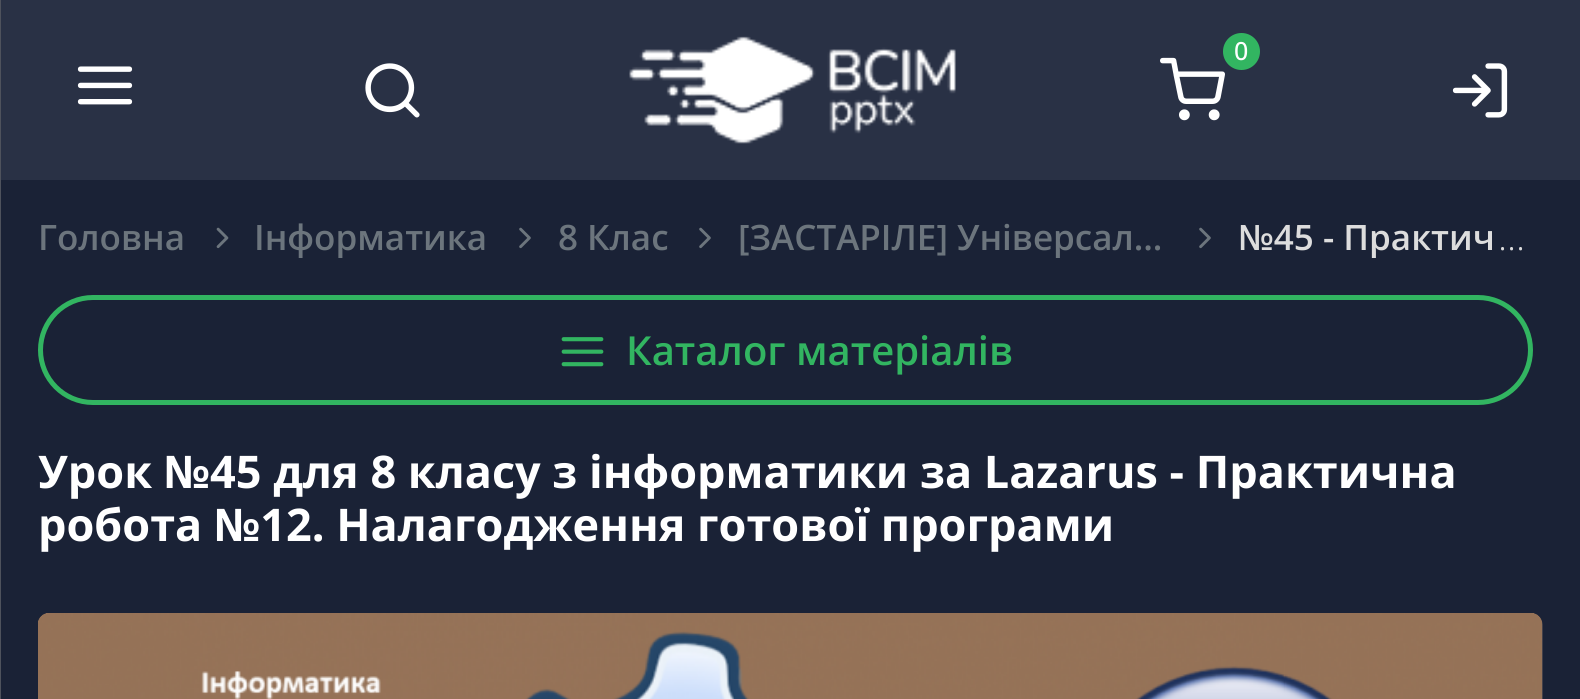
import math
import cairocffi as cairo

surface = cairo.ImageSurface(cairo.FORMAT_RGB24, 1580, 699)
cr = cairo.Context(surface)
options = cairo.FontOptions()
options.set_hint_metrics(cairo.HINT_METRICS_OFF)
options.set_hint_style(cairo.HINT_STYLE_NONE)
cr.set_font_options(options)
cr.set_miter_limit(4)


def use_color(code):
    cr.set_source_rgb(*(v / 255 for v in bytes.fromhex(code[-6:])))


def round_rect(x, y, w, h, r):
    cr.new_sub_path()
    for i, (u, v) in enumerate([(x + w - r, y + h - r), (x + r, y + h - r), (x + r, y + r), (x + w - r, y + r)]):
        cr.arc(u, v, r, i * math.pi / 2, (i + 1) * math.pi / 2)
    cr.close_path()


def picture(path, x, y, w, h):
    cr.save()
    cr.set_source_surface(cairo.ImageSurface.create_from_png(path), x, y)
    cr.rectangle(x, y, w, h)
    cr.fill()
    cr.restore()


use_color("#1a2236")
cr.paint()
use_color("#293145")
cr.rectangle(1, 0, 1579, 180)
cr.fill()
use_color("#4e525c")
cr.rectangle(0, 0, 1, 699)
cr.fill()
picture("img1.png", 629, 36, 327, 108)
picture("img2.png", 1160, 57, 65, 64)
use_color("#32b561")
cr.arc(1241.5, 51.5, 18.5, 0, 2 * math.pi)
cr.fill()
cr.select_font_face("Open Sans Medium")
cr.set_font_size(25)
use_color("#ffffff")
cr.move_to(1234, 60)
cr.show_text("0")
picture("img3.png", 77, 66, 56, 39)
picture("img4.png", 365, 63, 55, 55)
picture("img5.png", 1452, 63, 56, 55)
cr.select_font_face("Open Sans SemiBold")
cr.set_font_size(35)
use_color("#6c757d")
cr.move_to(38, 250)
cr.show_text("Головна")
picture("img6.png", 216, 227, 13, 22)
cr.save()
cr.rectangle(38, 215, 1455, 43)
cr.clip()
cr.move_to(254, 250)
cr.show_text("Інформатика")
cr.restore()
picture("img7.png", 519, 227, 12, 22)
cr.move_to(558, 250)
cr.show_text("8 Клас")
picture("img7.png", 699, 227, 12, 22)
cr.save()
cr.rectangle(738, 215, 500, 43)
cr.clip()
cr.move_to(738, 250)
cr.show_text("[ЗАСТАРІЛЕ] Універсал…")
cr.restore()
picture("img7.png", 1199, 227, 12, 22)
cr.save()
cr.rectangle(38, 215, 1455, 43)
cr.clip()
use_color("#dddddd")
cr.move_to(1238, 250)
cr.show_text("№45 - Практич")
cr.restore()
cr.select_font_face("Open Sans Light")
cr.set_font_size(38)
use_color("#dddddd")
cr.move_to(1498, 250)
cr.show_text("...")
round_rect(40.5, 297.5, 1490, 105, 52.5)
use_color("#32b561")
cr.set_line_width(5)
cr.stroke()
picture("img8.png", 561, 337, 43, 30)
cr.select_font_face("Open Sans SemiBold")
cr.set_font_size(40)
cr.move_to(626, 365)
cr.show_text("Каталог матеріалів")
cr.select_font_face("Open Sans", cairo.FONT_SLANT_NORMAL, cairo.FONT_WEIGHT_BOLD)
cr.set_font_size(45)
use_color("#ffffff")
cr.move_to(38, 488)
cr.show_text("Урок №45 для 8 класу з інформатики за Lazarus - Практична")
cr.move_to(38, 541)
cr.show_text("робота №12. Налагодження готової програми")
use_color("#293145")
cr.new_path()
cr.move_to(51, 613)
cr.line_to(1530, 613)
cr.curve_to(1537, 613, 1543, 619, 1543, 626)
cr.line_to(1543, 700)
cr.line_to(38, 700)
cr.line_to(38, 626)
cr.curve_to(38, 619, 44, 613, 51, 613)
cr.close_path()
cr.fill()
picture("img9.png", 38, 613, 1505, 86)
surface.write_to_png("result.png")
